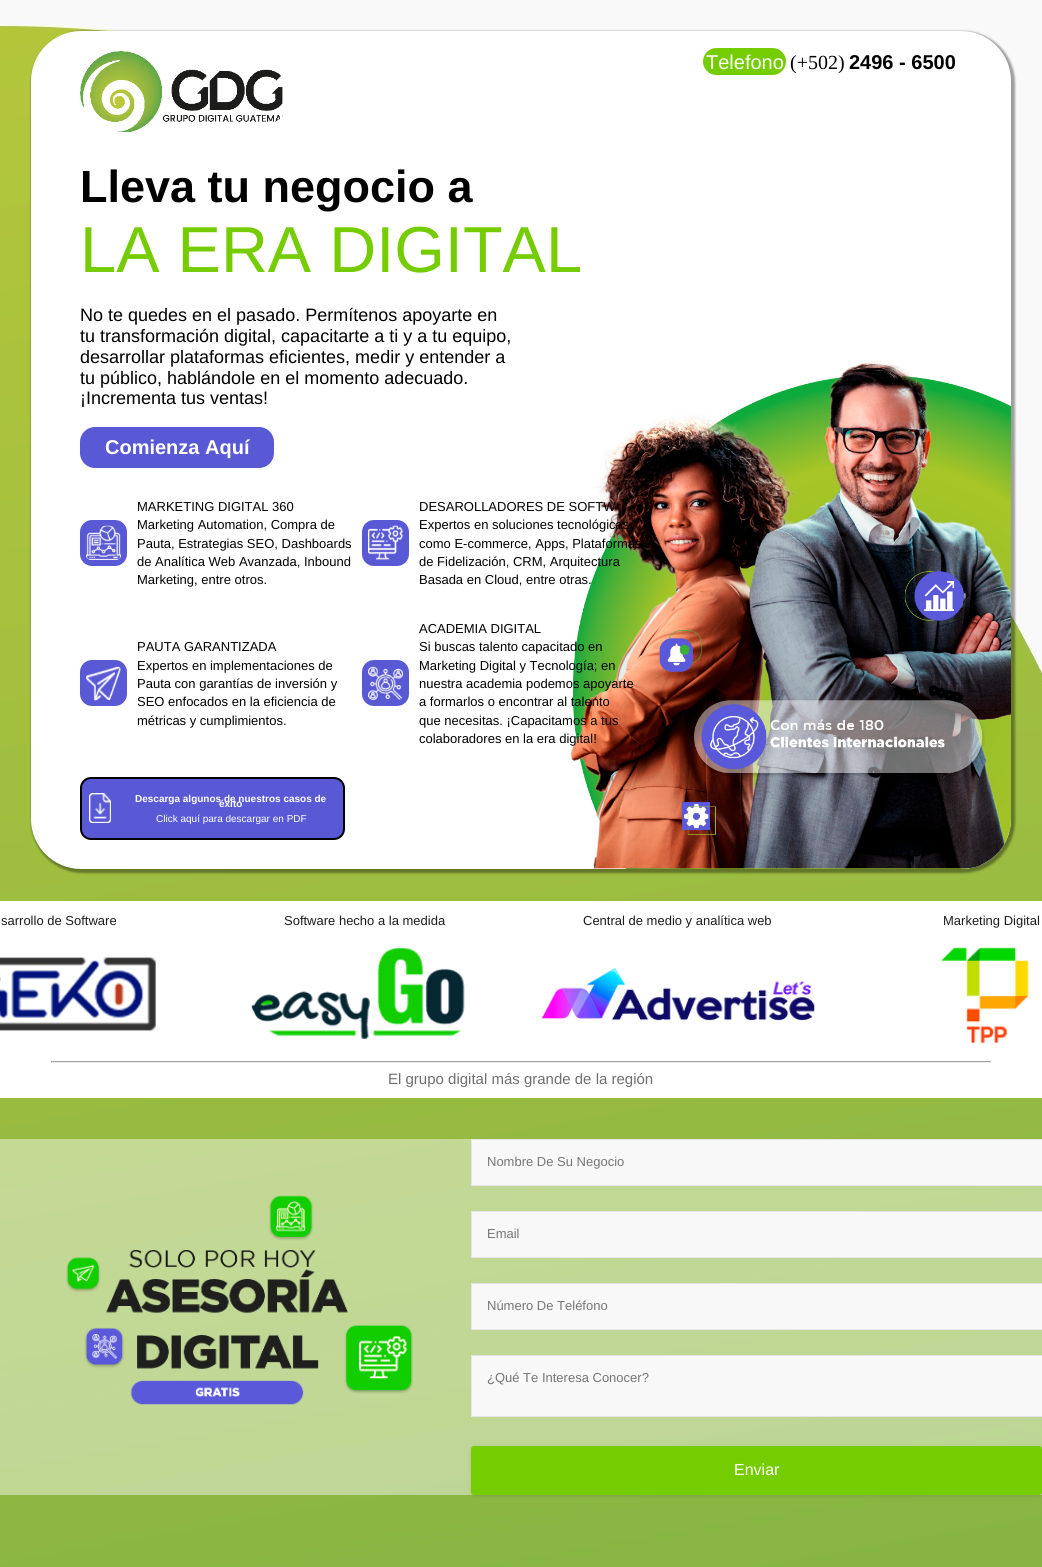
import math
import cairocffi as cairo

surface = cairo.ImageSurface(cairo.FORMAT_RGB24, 1042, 1567)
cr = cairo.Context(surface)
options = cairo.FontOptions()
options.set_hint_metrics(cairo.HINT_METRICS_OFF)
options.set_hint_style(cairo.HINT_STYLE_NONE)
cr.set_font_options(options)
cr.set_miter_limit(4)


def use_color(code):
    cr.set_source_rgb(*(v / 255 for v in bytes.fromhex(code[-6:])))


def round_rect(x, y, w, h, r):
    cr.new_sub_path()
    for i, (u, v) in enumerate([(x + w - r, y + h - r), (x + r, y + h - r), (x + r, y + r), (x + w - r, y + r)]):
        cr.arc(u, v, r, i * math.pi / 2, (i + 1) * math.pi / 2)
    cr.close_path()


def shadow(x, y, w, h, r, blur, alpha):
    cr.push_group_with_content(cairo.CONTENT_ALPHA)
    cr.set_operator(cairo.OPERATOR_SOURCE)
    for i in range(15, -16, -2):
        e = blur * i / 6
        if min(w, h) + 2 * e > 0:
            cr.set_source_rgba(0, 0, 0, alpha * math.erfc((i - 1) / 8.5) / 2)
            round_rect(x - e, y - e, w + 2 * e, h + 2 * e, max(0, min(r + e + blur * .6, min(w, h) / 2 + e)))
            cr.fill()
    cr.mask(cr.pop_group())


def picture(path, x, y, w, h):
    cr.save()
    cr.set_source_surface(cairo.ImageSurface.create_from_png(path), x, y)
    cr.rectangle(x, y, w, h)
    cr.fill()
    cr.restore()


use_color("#ffffff")
cr.paint()
picture("img1.png", 0, 0, 1042, 1567)
use_color("#000000")
shadow(31, 31, 984, 842, 52, 1, 0.37)
use_color("#ffffff")
round_rect(31, 31, 980, 838, 50)
cr.fill()
picture("img2.png", 570, 361, 441, 508)
picture("img3.png", 80, 51, 203, 81)
use_color("#75cd01")
round_rect(703, 48, 83, 27, 13.5)
cr.fill()
cr.select_font_face("Liberation Sans")
cr.set_font_size(20)
use_color("#ffffff")
cr.move_to(706, 69)
cr.show_text("Telefono")
cr.select_font_face("Liberation Serif")
use_color("#000000")
cr.move_to(790, 69)
cr.show_text("(+502)")
cr.select_font_face("Liberation Sans", cairo.FONT_SLANT_NORMAL, cairo.FONT_WEIGHT_BOLD)
cr.move_to(849, 69)
cr.show_text("2496 - 6500")
cr.set_font_size(45)
cr.move_to(80, 202)
cr.show_text("Lleva tu negocio a")
cr.select_font_face("Liberation Sans")
cr.set_font_size(65)
use_color("#75cd01")
cr.move_to(80, 272)
cr.show_text("LA ERA DIGITAL")
cr.set_font_size(18)
use_color("#000000")
cr.move_to(80, 321)
cr.show_text("No te quedes en el pasado. Permítenos apoyarte en")
cr.move_to(80, 342)
cr.show_text("tu transformación digital, capacitarte a ti y a tu equipo,")
cr.move_to(80, 363)
cr.show_text("desarrollar plataformas eficientes, medir y entender a")
cr.move_to(80, 384)
cr.show_text("tu público, hablándole en el momento adecuado.")
cr.move_to(80, 404)
cr.show_text("¡Incrementa tus ventas!")
use_color("#5959d5")
round_rect(80, 427, 194, 41, 15)
cr.fill()
cr.select_font_face("Liberation Sans", cairo.FONT_SLANT_NORMAL, cairo.FONT_WEIGHT_BOLD)
cr.set_font_size(20)
use_color("#ffffff")
cr.move_to(105, 454)
cr.show_text("Comienza Aquí")
use_color("#5959d5")
round_rect(80, 520, 47, 46, 12)
cr.fill()
picture("img4.png", 86, 525, 35, 35)
cr.select_font_face("Liberation Sans")
cr.set_font_size(13)
use_color("#000000")
cr.move_to(137, 511)
cr.show_text("MARKETING DIGITAL 360")
cr.move_to(137, 529)
cr.show_text("Marketing Automation, Compra de")
cr.move_to(137, 548)
cr.show_text("Pauta, Estrategias SEO, Dashboards")
cr.move_to(137, 566)
cr.show_text("de Analítica Web Avanzada, Inbound")
cr.move_to(137, 584)
cr.show_text("Marketing, entre otros.")
use_color("#5959d5")
round_rect(362, 520, 47, 46, 12)
cr.fill()
picture("img5.png", 368, 525, 35, 35)
use_color("#000000")
cr.move_to(419, 511)
cr.show_text("DESAROLLADORES DE SOFTW")
cr.move_to(419, 529)
cr.show_text("Expertos en soluciones tecnológicas")
cr.move_to(419, 548)
cr.show_text("como E-commerce, Apps, Plataformas")
cr.move_to(419, 566)
cr.show_text("de Fidelización, CRM, Arquitectura")
cr.move_to(419, 584)
cr.show_text("Basada en Cloud, entre otras.")
use_color("#5959d5")
round_rect(80, 660, 47, 46, 12)
cr.fill()
picture("img6.png", 86, 666, 35, 35)
use_color("#000000")
cr.move_to(137, 651)
cr.show_text("PAUTA GARANTIZADA")
cr.move_to(137, 670)
cr.show_text("Expertos en implementaciones de")
cr.move_to(137, 688)
cr.show_text("Pauta con garantías de inversión y")
cr.move_to(137, 706)
cr.show_text("SEO enfocados en la eficiencia de")
cr.move_to(137, 725)
cr.show_text("métricas y cumplimientos.")
use_color("#5959d5")
round_rect(362, 660, 47, 46, 12)
cr.fill()
picture("img7.png", 368, 666, 35, 35)
use_color("#000000")
cr.move_to(419, 633)
cr.show_text("ACADEMIA DIGITAL")
cr.move_to(419, 651)
cr.show_text("Si buscas talento capacitado en")
cr.move_to(419, 670)
cr.show_text("Marketing Digital y Tecnología; en")
cr.move_to(419, 688)
cr.show_text("nuestra academia podemos apoyarte")
cr.move_to(419, 706)
cr.show_text("a formarlos o encontrar al talento")
cr.move_to(419, 725)
cr.show_text("que necesitas. ¡Capacitamos a tus")
cr.move_to(419, 743)
cr.show_text("colaboradores en la era digital!")
use_color("#5959d5")
round_rect(81, 778, 263, 61, 10)
cr.fill_preserve()
use_color("#000000")
cr.stroke()
picture("img8.png", 89, 793, 22, 30)
cr.select_font_face("Liberation Sans", cairo.FONT_SLANT_NORMAL, cairo.FONT_WEIGHT_BOLD)
cr.set_font_size(10)
use_color("#ffffff")
cr.move_to(135, 802)
cr.show_text("Descarga algunos de nuestros casos de")
cr.move_to(219, 807)
cr.show_text("éxito")
cr.select_font_face("Liberation Sans")
cr.move_to(156, 822)
cr.show_text("Click aquí para descargar en PDF")
cr.rectangle(0, 901, 1042, 197)
cr.fill()
cr.set_font_size(13)
use_color("#1c1c1b")
cr.move_to(1, 925)
cr.show_text("sarrollo de Software")
picture("img9.png", 0, 957, 156, 74)
cr.move_to(284, 925)
cr.show_text("Software hecho a la medida")
picture("img10.png", 251, 948, 214, 91)
cr.move_to(583, 925)
cr.show_text("Central de medio y analítica web")
picture("img11.png", 541, 968, 274, 53)
cr.move_to(943, 925)
cr.show_text("Marketing Digital")
picture("img12.png", 940, 947, 89, 96)
cr.new_path()
cr.move_to(990.5, 1061.5)
cr.line_to(990.5, 1062.5)
cr.line_to(51.5, 1062.5)
use_color("#eeeeee")
cr.set_line_width(1)
cr.stroke()
cr.new_path()
cr.move_to(51.5, 1062.5)
cr.line_to(51.5, 1061.5)
cr.line_to(990.5, 1061.5)
use_color("#9f9f9f")
cr.stroke()
cr.set_font_size(15)
use_color("#706f6f")
cr.move_to(388, 1084)
cr.show_text("El grupo digital más grande de la región")
cr.set_source_rgba(1, 1, 1, 0.44)
cr.rectangle(0, 1139, 1042, 356)
cr.fill()
picture("img13.png", 66, 1195, 347, 210)
use_color("#f8f8f8")
cr.rectangle(471.5, 1139.5, 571, 46)
cr.fill_preserve()
use_color("#e5e5e5")
cr.stroke()
cr.set_font_size(13)
use_color("#757575")
cr.move_to(487, 1166)
cr.show_text("Nombre De Su Negocio")
use_color("#f8f8f8")
cr.rectangle(471.5, 1211.5, 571, 46)
cr.fill_preserve()
use_color("#e5e5e5")
cr.stroke()
use_color("#757575")
cr.move_to(487, 1238)
cr.show_text("Email")
use_color("#f8f8f8")
cr.rectangle(471.5, 1283.5, 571, 46)
cr.fill_preserve()
use_color("#e5e5e5")
cr.stroke()
use_color("#757575")
cr.move_to(487, 1310)
cr.show_text("Número De Teléfono")
use_color("#f8f8f8")
cr.rectangle(471.5, 1355.5, 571, 61)
cr.fill_preserve()
use_color("#e5e5e5")
cr.stroke()
use_color("#757575")
cr.move_to(487, 1382)
cr.show_text("¿Qué Te Interesa Conocer?")
use_color("#000000")
shadow(471, 1447, 571, 49, 3, 2, 0.1)
use_color("#75cd01")
round_rect(471, 1446, 571, 49, 3)
cr.fill()
cr.set_font_size(16)
use_color("#ffffff")
cr.move_to(734, 1475)
cr.show_text("Enviar")
surface.write_to_png("result.png")
